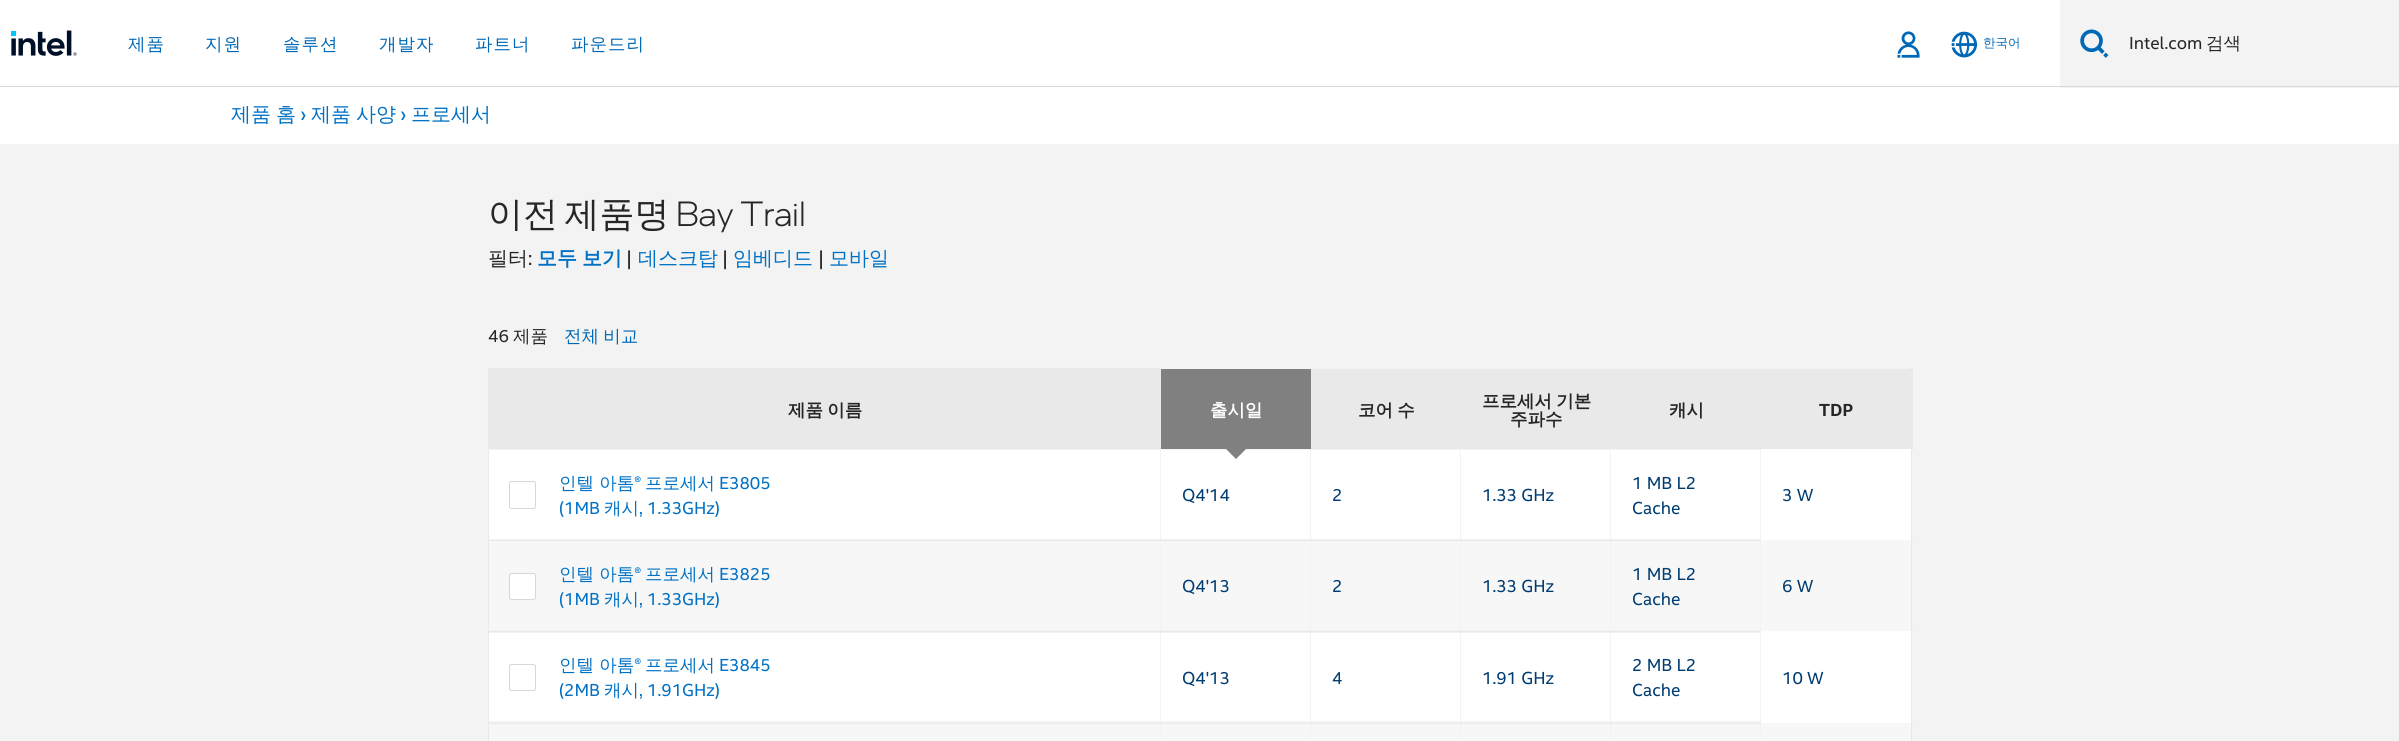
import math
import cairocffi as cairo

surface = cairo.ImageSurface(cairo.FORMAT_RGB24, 2399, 741)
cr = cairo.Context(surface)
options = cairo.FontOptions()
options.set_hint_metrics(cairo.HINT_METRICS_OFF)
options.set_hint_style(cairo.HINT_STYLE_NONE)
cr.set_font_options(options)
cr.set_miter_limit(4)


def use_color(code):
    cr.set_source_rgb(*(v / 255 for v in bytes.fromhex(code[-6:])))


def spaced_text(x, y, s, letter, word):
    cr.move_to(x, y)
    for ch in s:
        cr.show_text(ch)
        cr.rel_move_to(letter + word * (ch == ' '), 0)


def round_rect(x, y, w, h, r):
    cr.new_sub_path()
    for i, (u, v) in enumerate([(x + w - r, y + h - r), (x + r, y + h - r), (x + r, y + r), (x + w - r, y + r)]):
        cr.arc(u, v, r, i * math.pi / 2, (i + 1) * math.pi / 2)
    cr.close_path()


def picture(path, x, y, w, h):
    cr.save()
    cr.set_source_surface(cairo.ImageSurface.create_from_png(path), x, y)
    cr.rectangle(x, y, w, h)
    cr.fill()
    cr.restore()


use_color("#ffffff")
cr.paint()
use_color("#d7d7d7")
cr.rectangle(0, 86, 2060, 1)
cr.fill()
picture("img1.png", 11, 30, 66, 26)
cr.select_font_face("WenQuanYi Zen Hei Medium")
cr.set_font_size(17.5)
use_color("#0068b5")
spaced_text(128, 50, "제품", 1, 0)
spaced_text(205, 50, "지원", 1, 0)
spaced_text(283, 50, "솔루션", 1, 0)
spaced_text(379, 50, "개발자", 1, 0)
spaced_text(475, 50, "파트너", 1, 0)
spaced_text(571, 50, "파운드리", 1, 0)
picture("img2.png", 1897, 31, 23, 27)
picture("img3.png", 1951, 31, 27, 27)
cr.set_font_size(12.5)
cr.move_to(1983, 47)
cr.show_text("한국어")
use_color("#f3f3f3")
cr.rectangle(2060, 0, 339, 88)
cr.fill()
use_color("#d7d7d7")
cr.rectangle(2060, 86, 339, 1)
cr.fill()
picture("img4.png", 2080, 29, 29, 29)
cr.select_font_face("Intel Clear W")
cr.set_font_size(17.5)
use_color("#262626")
cr.move_to(2129, 49)
cr.show_text("Intel.com")
cr.select_font_face("WenQuanYi Zen Hei Medium")
cr.move_to(2206, 49)
cr.show_text("검색")
use_color("#f3f3f3")
cr.rectangle(0, 144, 2399, 597)
cr.fill()
cr.set_font_size(20)
use_color("#0071c5")
spaced_text(231, 121, "제품 홈", 0, -1)
cr.select_font_face("Intel Clear W")
cr.move_to(300, 121)
cr.show_text("›")
cr.select_font_face("WenQuanYi Zen Hei Medium")
spaced_text(311, 121, "제품 사양", 0, -1)
cr.select_font_face("Intel Clear W")
cr.move_to(400, 121)
cr.show_text("›")
cr.select_font_face("WenQuanYi Zen Hei Medium")
cr.move_to(411, 121)
cr.show_text("프로세서")
cr.set_font_size(35)
use_color("#262626")
spaced_text(488, 226, "이전 제품명", 0, -4)
cr.select_font_face("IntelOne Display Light")
cr.move_to(676, 226)
cr.show_text("Bay Trail")
cr.select_font_face("WenQuanYi Zen Hei Medium")
cr.set_font_size(20)
cr.move_to(488, 265)
cr.show_text("필터")
cr.select_font_face("Intel Clear W")
cr.move_to(528, 265)
cr.show_text(":")
cr.select_font_face("WenQuanYi Zen Hei", cairo.FONT_SLANT_NORMAL, cairo.FONT_WEIGHT_BOLD)
use_color("#0071c5")
spaced_text(537, 265, "모두 보기", 0, -1)
cr.select_font_face("Intel Clear W")
use_color("#262626")
cr.move_to(626, 265)
cr.show_text("|")
cr.select_font_face("WenQuanYi Zen Hei Medium")
use_color("#0071c5")
cr.move_to(638, 265)
cr.show_text("데스크탑")
cr.select_font_face("Intel Clear W")
use_color("#262626")
cr.move_to(722, 265)
cr.show_text("|")
cr.select_font_face("WenQuanYi Zen Hei Medium")
use_color("#0071c5")
cr.move_to(733, 265)
cr.show_text("임베디드")
cr.select_font_face("Intel Clear W")
use_color("#262626")
cr.move_to(818, 265)
cr.show_text("|")
cr.select_font_face("WenQuanYi Zen Hei Medium")
use_color("#0071c5")
cr.move_to(829, 265)
cr.show_text("모바일")
cr.select_font_face("Intel Clear W")
cr.set_font_size(17.5)
use_color("#262626")
cr.move_to(488, 342)
cr.show_text("46")
cr.select_font_face("WenQuanYi Zen Hei Medium")
cr.move_to(513, 342)
cr.show_text("제품")
use_color("#0068b5")
spaced_text(564, 342, "전체 비교", 0, -1)
use_color("#e9e9e9")
cr.rectangle(488, 368, 672, 1)
cr.fill()
cr.rectangle(1911, 450, 1, 291)
cr.fill()
cr.rectangle(488, 368, 1, 373)
cr.fill()
use_color("#ffffff")
cr.rectangle(1161, 449, 1, 1)
cr.fill()
use_color("#e9e9e9")
cr.rectangle(489, 369, 672, 80)
cr.fill()
cr.select_font_face("WenQuanYi Zen Hei", cairo.FONT_SLANT_NORMAL, cairo.FONT_WEIGHT_BOLD)
use_color("#262626")
spaced_text(788, 416, "제품 이름", 0, -1)
use_color("#ffffff")
cr.rectangle(1311, 449, 1, 1)
cr.fill()
use_color("#808080")
cr.rectangle(1161, 369, 150, 80)
cr.fill()
use_color("#ffffff")
cr.move_to(1210, 416)
cr.show_text("출시일")
cr.rectangle(1161, 450, 149, 89)
cr.fill()
use_color("#808080")
cr.new_path()
cr.move_to(1226, 449)
cr.line_to(1246, 449)
cr.line_to(1236, 459)
cr.close_path()
cr.fill()
use_color("#ffffff")
cr.rectangle(1461, 449, 1, 1)
cr.fill()
use_color("#e9e9e9")
cr.rectangle(1311, 369, 599, 80)
cr.fill()
use_color("#262626")
spaced_text(1358, 416, "코어 수", 0, -1)
use_color("#ffffff")
cr.rectangle(1611, 449, 1, 1)
cr.fill()
use_color("#262626")
spaced_text(1482, 407, "프로세서 기본", 0, -1)
cr.move_to(1510, 425)
cr.show_text("주파수")
cr.move_to(1669, 416)
cr.show_text("캐시")
use_color("#e9e9e9")
cr.rectangle(1910, 368, 3, 82)
cr.fill()
cr.select_font_face("Intel Clear W", cairo.FONT_SLANT_NORMAL, cairo.FONT_WEIGHT_BOLD)
use_color("#262626")
cr.move_to(1819, 416)
cr.show_text("TDP")
use_color("#f3f3f3")
cr.rectangle(488, 449, 1, 1)
cr.fill()
use_color("#e9e9e9")
cr.rectangle(1611, 540, 152, 1)
cr.fill()
cr.rectangle(1611, 539, 1, 2)
cr.fill()
cr.rectangle(1461, 540, 152, 1)
cr.fill()
cr.rectangle(1461, 539, 1, 2)
cr.fill()
cr.rectangle(1311, 540, 152, 1)
cr.fill()
cr.rectangle(1311, 539, 1, 2)
cr.fill()
cr.rectangle(1161, 540, 152, 1)
cr.fill()
cr.rectangle(1161, 539, 1, 2)
cr.fill()
cr.rectangle(488, 540, 675, 1)
cr.fill()
use_color("#ffffff")
cr.rectangle(489, 450, 671, 89)
cr.fill()
round_rect(509.5, 481.5, 26, 27, 2)
use_color("#d7d7d7")
cr.set_line_width(1)
cr.stroke()
cr.select_font_face("WenQuanYi Zen Hei Medium")
use_color("#0071c5")
cr.move_to(559, 489)
cr.show_text("인텔 아톰")
cr.select_font_face("Intel Clear W")
cr.move_to(634, 489)
cr.show_text("®")
cr.select_font_face("WenQuanYi Zen Hei Medium")
cr.move_to(645, 489)
cr.show_text("프로세서")
cr.select_font_face("Intel Clear W")
cr.move_to(719, 489)
cr.show_text("E3805")
cr.move_to(559, 514)
cr.show_text("(1MB")
cr.select_font_face("WenQuanYi Zen Hei Medium")
cr.move_to(604, 514)
cr.show_text("캐시")
cr.select_font_face("Intel Clear W")
cr.move_to(639, 514)
cr.show_text(", 1.33GHz)")
use_color("#003c71")
cr.move_to(1182, 501)
cr.show_text("Q4'14")
use_color("#ffffff")
cr.rectangle(1311, 450, 149, 89)
cr.fill()
use_color("#003c71")
cr.move_to(1332, 501)
cr.show_text("2")
use_color("#ffffff")
cr.rectangle(1461, 450, 149, 89)
cr.fill()
use_color("#003c71")
cr.move_to(1482, 501)
cr.show_text("1.33 GHz")
use_color("#ffffff")
cr.rectangle(1611, 450, 149, 89)
cr.fill()
use_color("#003c71")
cr.move_to(1632, 489)
cr.show_text("1 MB L2")
cr.move_to(1632, 514)
cr.show_text("Cache")
use_color("#e9e9e9")
cr.rectangle(1911, 540, 2, 1)
cr.fill()
use_color("#ffffff")
cr.rectangle(1761, 449, 150, 91)
cr.fill()
use_color("#003c71")
cr.move_to(1782, 501)
cr.show_text("3 W")
use_color("#e9e9e9")
cr.rectangle(1611, 631, 152, 1)
cr.fill()
cr.rectangle(1611, 630, 1, 3)
cr.fill()
cr.rectangle(1461, 631, 152, 1)
cr.fill()
cr.rectangle(1461, 630, 1, 3)
cr.fill()
cr.rectangle(1311, 631, 152, 1)
cr.fill()
cr.rectangle(1311, 630, 1, 3)
cr.fill()
cr.rectangle(1161, 631, 152, 1)
cr.fill()
cr.rectangle(1161, 630, 1, 3)
cr.fill()
cr.rectangle(488, 631, 675, 1)
cr.fill()
use_color("#f7f7f7")
cr.rectangle(489, 541, 671, 89)
cr.fill()
use_color("#ffffff")
round_rect(509.5, 573.5, 26, 26, 2)
cr.fill_preserve()
use_color("#d7d7d7")
cr.stroke()
cr.select_font_face("WenQuanYi Zen Hei Medium")
use_color("#0071c5")
cr.move_to(559, 580)
cr.show_text("인텔 아톰")
cr.select_font_face("Intel Clear W")
cr.move_to(634, 580)
cr.show_text("®")
cr.select_font_face("WenQuanYi Zen Hei Medium")
cr.move_to(645, 580)
cr.show_text("프로세서")
cr.select_font_face("Intel Clear W")
cr.move_to(719, 580)
cr.show_text("E3825")
cr.move_to(559, 605)
cr.show_text("(1MB")
cr.select_font_face("WenQuanYi Zen Hei Medium")
cr.move_to(604, 605)
cr.show_text("캐시")
cr.select_font_face("Intel Clear W")
cr.move_to(639, 605)
cr.show_text(", 1.33GHz)")
use_color("#f7f7f7")
cr.rectangle(1161, 541, 149, 89)
cr.fill()
use_color("#003c71")
cr.move_to(1182, 592)
cr.show_text("Q4'13")
use_color("#f7f7f7")
cr.rectangle(1311, 541, 149, 89)
cr.fill()
use_color("#003c71")
cr.move_to(1332, 592)
cr.show_text("2")
use_color("#f7f7f7")
cr.rectangle(1461, 541, 149, 89)
cr.fill()
use_color("#003c71")
cr.move_to(1482, 592)
cr.show_text("1.33 GHz")
use_color("#f7f7f7")
cr.rectangle(1611, 541, 149, 89)
cr.fill()
use_color("#003c71")
cr.move_to(1632, 580)
cr.show_text("1 MB L2")
cr.move_to(1632, 605)
cr.show_text("Cache")
use_color("#e9e9e9")
cr.rectangle(1911, 631, 2, 1)
cr.fill()
use_color("#f7f7f7")
cr.rectangle(1761, 540, 150, 91)
cr.fill()
use_color("#003c71")
cr.move_to(1782, 592)
cr.show_text("6 W")
use_color("#e9e9e9")
cr.rectangle(1611, 723, 152, 1)
cr.fill()
cr.rectangle(1611, 721, 1, 3)
cr.fill()
cr.rectangle(1461, 723, 152, 1)
cr.fill()
cr.rectangle(1461, 721, 1, 3)
cr.fill()
cr.rectangle(1311, 723, 152, 1)
cr.fill()
cr.rectangle(1311, 721, 1, 3)
cr.fill()
cr.rectangle(1161, 723, 152, 1)
cr.fill()
cr.rectangle(1161, 721, 1, 3)
cr.fill()
cr.rectangle(488, 723, 675, 1)
cr.fill()
use_color("#ffffff")
cr.rectangle(489, 633, 671, 88)
cr.fill()
round_rect(509.5, 664.5, 26, 26, 2)
use_color("#d7d7d7")
cr.stroke()
cr.select_font_face("WenQuanYi Zen Hei Medium")
use_color("#0071c5")
cr.move_to(559, 671)
cr.show_text("인텔 아톰")
cr.select_font_face("Intel Clear W")
cr.move_to(634, 671)
cr.show_text("®")
cr.select_font_face("WenQuanYi Zen Hei Medium")
cr.move_to(645, 671)
cr.show_text("프로세서")
cr.select_font_face("Intel Clear W")
cr.move_to(719, 671)
cr.show_text("E3845")
cr.move_to(559, 696)
cr.show_text("(2MB")
cr.select_font_face("WenQuanYi Zen Hei Medium")
cr.move_to(604, 696)
cr.show_text("캐시")
cr.select_font_face("Intel Clear W")
cr.move_to(639, 696)
cr.show_text(", 1.91GHz)")
use_color("#ffffff")
cr.rectangle(1161, 633, 149, 88)
cr.fill()
use_color("#003c71")
cr.move_to(1182, 684)
cr.show_text("Q4'13")
use_color("#ffffff")
cr.rectangle(1311, 633, 149, 88)
cr.fill()
use_color("#003c71")
cr.move_to(1332, 684)
cr.show_text("4")
use_color("#ffffff")
cr.rectangle(1461, 633, 149, 88)
cr.fill()
use_color("#003c71")
cr.move_to(1482, 684)
cr.show_text("1.91 GHz")
use_color("#ffffff")
cr.rectangle(1611, 633, 149, 88)
cr.fill()
use_color("#003c71")
cr.move_to(1632, 671)
cr.show_text("2 MB L2")
cr.move_to(1632, 696)
cr.show_text("Cache")
use_color("#e9e9e9")
cr.rectangle(1911, 723, 2, 1)
cr.fill()
use_color("#ffffff")
cr.rectangle(1761, 631, 150, 92)
cr.fill()
use_color("#003c71")
cr.move_to(1782, 684)
cr.show_text("10 W")
use_color("#f7f7f7")
cr.rectangle(489, 724, 671, 17)
cr.fill()
cr.rectangle(1161, 724, 149, 17)
cr.fill()
cr.rectangle(1311, 724, 149, 17)
cr.fill()
cr.rectangle(1461, 724, 149, 17)
cr.fill()
cr.rectangle(1611, 724, 149, 17)
cr.fill()
cr.rectangle(1761, 723, 150, 18)
cr.fill()
surface.write_to_png("result.png")
